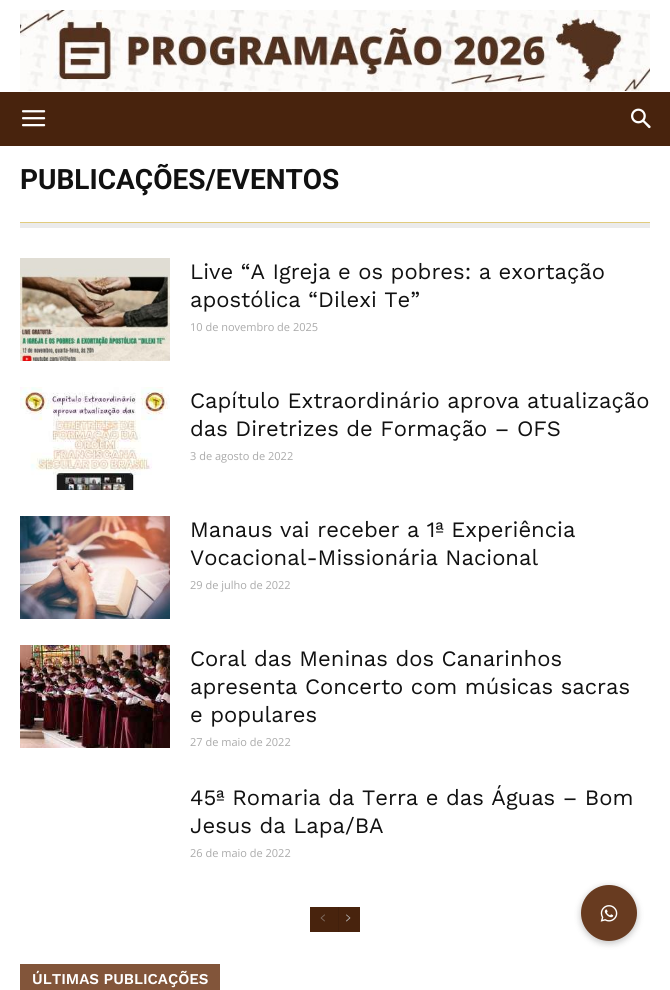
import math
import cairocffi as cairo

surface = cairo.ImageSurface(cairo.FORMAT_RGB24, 670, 990)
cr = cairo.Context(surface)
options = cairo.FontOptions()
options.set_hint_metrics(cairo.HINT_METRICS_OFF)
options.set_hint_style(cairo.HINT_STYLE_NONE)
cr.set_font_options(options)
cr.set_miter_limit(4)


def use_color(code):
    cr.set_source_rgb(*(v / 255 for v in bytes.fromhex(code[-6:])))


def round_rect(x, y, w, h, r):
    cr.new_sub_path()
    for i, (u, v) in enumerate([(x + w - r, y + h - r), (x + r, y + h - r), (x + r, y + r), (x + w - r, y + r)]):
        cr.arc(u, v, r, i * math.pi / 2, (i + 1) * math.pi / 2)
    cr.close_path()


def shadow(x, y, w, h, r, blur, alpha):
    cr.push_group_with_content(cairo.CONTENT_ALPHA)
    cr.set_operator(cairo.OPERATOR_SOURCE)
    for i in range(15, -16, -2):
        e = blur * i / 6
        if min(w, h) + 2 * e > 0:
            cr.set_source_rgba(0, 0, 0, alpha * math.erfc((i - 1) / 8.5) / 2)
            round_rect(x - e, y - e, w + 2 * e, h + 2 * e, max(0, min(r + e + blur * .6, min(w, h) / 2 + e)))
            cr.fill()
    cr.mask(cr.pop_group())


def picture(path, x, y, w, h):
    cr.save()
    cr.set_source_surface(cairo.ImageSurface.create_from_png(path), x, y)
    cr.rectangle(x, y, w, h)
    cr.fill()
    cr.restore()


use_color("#ffffff")
cr.paint()
picture("img1.png", 20, 10, 630, 81)
use_color("#48230d")
cr.rectangle(0, 92, 670, 54)
cr.fill()
picture("img2.png", 22, 110, 24, 17)
picture("img3.png", 631, 108, 20, 21)
cr.select_font_face("Roboto", cairo.FONT_SLANT_NORMAL, cairo.FONT_WEIGHT_BOLD)
cr.set_font_size(28)
use_color("#111111")
cr.move_to(20, 189)
cr.show_text("PUBLICAÇÕES/EVENTOS")
use_color("#e1cb7d")
cr.rectangle(20, 222, 630, 1)
cr.fill()
use_color("#ebebeb")
cr.rectangle(20, 223, 630, 5)
cr.fill()
picture("img4.png", 20, 258, 150, 103)
cr.select_font_face("Work Sans")
cr.set_font_size(22)
use_color("#111111")
cr.move_to(190, 279)
cr.show_text("Live “A Igreja e os pobres: a exortação")
cr.move_to(190, 307)
cr.show_text("apostólica “Dilexi Te”")
cr.select_font_face("Open Sans")
cr.set_font_size(11)
use_color("#aaaaaa")
cr.move_to(190, 331)
cr.show_text("10 de novembro de 2025")
picture("img5.png", 20, 387, 150, 103)
cr.select_font_face("Work Sans")
cr.set_font_size(22)
use_color("#111111")
cr.move_to(190, 408)
cr.show_text("Capítulo Extraordinário aprova atualização")
cr.move_to(190, 436)
cr.show_text("das Diretrizes de Formação – OFS")
cr.select_font_face("Open Sans")
cr.set_font_size(11)
use_color("#aaaaaa")
cr.move_to(190, 460)
cr.show_text("3 de agosto de 2022")
picture("img6.png", 20, 516, 150, 103)
cr.select_font_face("Work Sans")
cr.set_font_size(22)
use_color("#111111")
cr.move_to(190, 537)
cr.show_text("Manaus vai receber a 1ª Experiência")
cr.move_to(190, 565)
cr.show_text("Vocacional-Missionária Nacional")
cr.select_font_face("Open Sans")
cr.set_font_size(11)
use_color("#aaaaaa")
cr.move_to(190, 589)
cr.show_text("29 de julho de 2022")
picture("img7.png", 20, 645, 150, 103)
cr.select_font_face("Work Sans")
cr.set_font_size(22)
use_color("#111111")
cr.move_to(190, 666)
cr.show_text("Coral das Meninas dos Canarinhos")
cr.move_to(190, 694)
cr.show_text("apresenta Concerto com músicas sacras")
cr.move_to(190, 722)
cr.show_text("e populares")
cr.select_font_face("Open Sans")
cr.set_font_size(11)
use_color("#aaaaaa")
cr.move_to(190, 746)
cr.show_text("27 de maio de 2022")
cr.select_font_face("Work Sans")
cr.set_font_size(22)
use_color("#111111")
cr.move_to(190, 805)
cr.show_text("45ª Romaria da Terra e das Águas – Bom")
cr.move_to(190, 833)
cr.show_text("Jesus da Lapa/BA")
cr.select_font_face("Open Sans")
cr.set_font_size(11)
use_color("#aaaaaa")
cr.move_to(190, 857)
cr.show_text("26 de maio de 2022")
use_color("#48230d")
cr.rectangle(310, 907, 50, 25)
cr.fill()
picture("img8.png", 320, 914, 5, 8)
use_color("#42200c")
cr.rectangle(338, 907, 1, 25)
cr.fill()
picture("img9.png", 346, 914, 5, 8)
use_color("#82553a")
cr.rectangle(20, 964, 200, 26)
cr.fill()
cr.select_font_face("Work Sans SemiBold")
cr.set_font_size(15)
use_color("#ffffff")
cr.move_to(32, 984)
cr.show_text("ÚLTIMAS PUBLICAÇÕES")
use_color("#000000")
shadow(580, 886, 58, 58, 29, 3, 0.2)
use_color("#683b20")
cr.arc(609, 913, 28, 0, 2 * math.pi)
cr.fill()
picture("img10.png", 600, 905, 18, 17)
surface.write_to_png("result.png")
